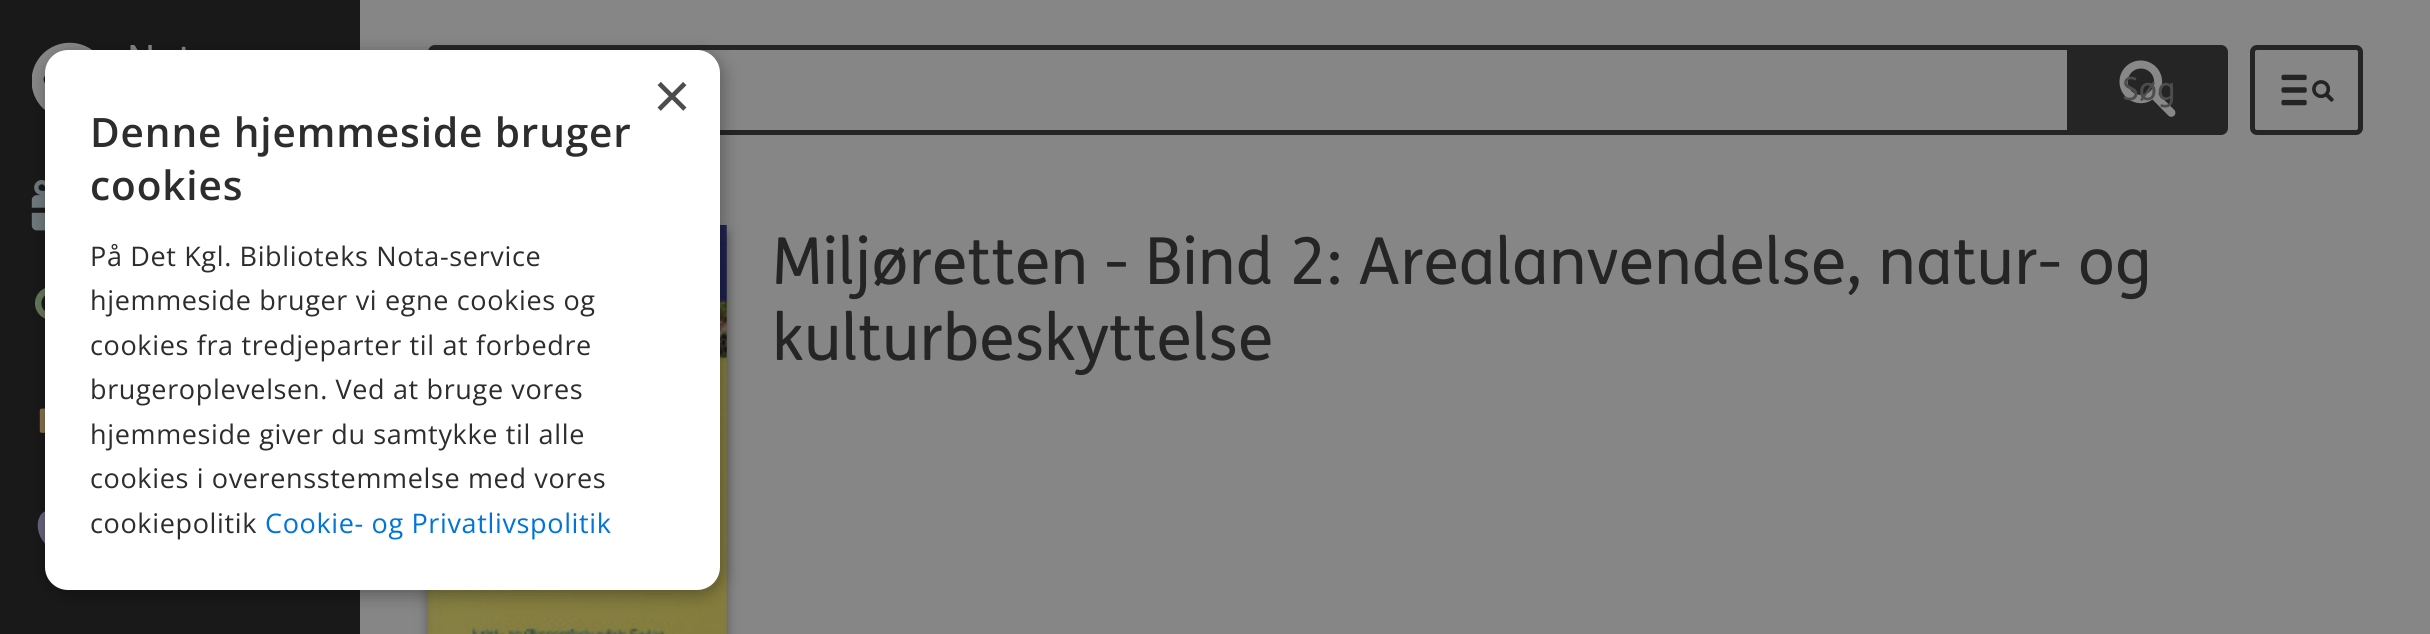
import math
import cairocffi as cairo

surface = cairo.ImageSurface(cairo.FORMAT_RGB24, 2430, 634)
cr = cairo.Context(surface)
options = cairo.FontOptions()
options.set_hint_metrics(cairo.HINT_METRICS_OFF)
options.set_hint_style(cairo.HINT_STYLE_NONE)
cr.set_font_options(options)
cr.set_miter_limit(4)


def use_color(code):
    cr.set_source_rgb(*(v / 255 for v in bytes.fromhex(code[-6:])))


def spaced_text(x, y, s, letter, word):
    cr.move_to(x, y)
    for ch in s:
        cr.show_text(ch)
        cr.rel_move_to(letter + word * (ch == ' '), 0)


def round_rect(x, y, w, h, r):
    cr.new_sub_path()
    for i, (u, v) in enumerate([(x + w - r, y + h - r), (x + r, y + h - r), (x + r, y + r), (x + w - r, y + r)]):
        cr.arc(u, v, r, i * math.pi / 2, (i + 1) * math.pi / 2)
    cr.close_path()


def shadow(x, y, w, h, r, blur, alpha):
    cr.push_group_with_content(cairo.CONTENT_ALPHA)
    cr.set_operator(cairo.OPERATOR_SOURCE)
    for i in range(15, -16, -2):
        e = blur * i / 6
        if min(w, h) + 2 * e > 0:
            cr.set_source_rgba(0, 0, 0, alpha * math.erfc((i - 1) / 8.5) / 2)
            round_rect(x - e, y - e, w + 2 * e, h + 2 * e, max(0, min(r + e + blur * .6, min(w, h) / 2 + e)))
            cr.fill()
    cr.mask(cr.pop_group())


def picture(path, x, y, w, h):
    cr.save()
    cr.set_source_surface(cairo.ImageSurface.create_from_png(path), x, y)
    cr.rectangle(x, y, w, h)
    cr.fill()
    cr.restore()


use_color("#868686")
cr.paint()
use_color("#191919")
cr.rectangle(0, 0, 360, 634)
cr.fill()
picture("img1.png", 32, 42, 154, 68)
picture("img2.png", 31, 180, 14, 51)
picture("img3.png", 35, 288, 10, 31)
picture("img4.png", 39, 408, 6, 25)
picture("img5.png", 37, 511, 8, 33)
cr.new_path()
cr.move_to(435, 47.5)
cr.line_to(2069.5, 47.5)
cr.line_to(2069.5, 132.5)
cr.line_to(435, 132.5)
cr.curve_to(432.5, 132.5, 430.5, 130.5, 430.5, 128)
cr.line_to(430.5, 52)
cr.curve_to(430.5, 49.5, 432.5, 47.5, 435, 47.5)
cr.close_path()
use_color("#252525")
cr.set_line_width(5)
cr.stroke()
use_color("#090909")
shadow(428, 234, 299, 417, 0, 5.5, 0.4)
picture("img8.png", 427, 225, 300, 409)
use_color("#000000")
shadow(47, 54, 675, 540, 23, 9, 0.35)
use_color("#ffffff")
round_rect(45, 50, 675, 540, 23)
cr.fill()
cr.select_font_face("Liberation Sans")
cr.set_font_size(65)
use_color("#4d4d4d")
cr.move_to(653, 118)
cr.show_text("×")
cr.select_font_face("Open Sans SemiBold")
cr.set_font_size(40.5)
use_color("#2d2d2d")
spaced_text(90, 147, "Denne hjemmeside bruger", 0.9, 0)
spaced_text(90, 200, "cookies", 0.9, 0)
cr.select_font_face("Open Sans")
cr.set_font_size(27)
spaced_text(90, 266, "På Det Kgl. Biblioteks Nota-service", 0.65, 0)
spaced_text(90, 310, "hjemmeside bruger vi egne cookies og", 0.65, 0)
spaced_text(90, 355, "cookies fra tredjeparter til at forbedre", 0.65, 0)
spaced_text(90, 399, "brugeroplevelsen. Ved at bruge vores", 0.65, 0)
spaced_text(90, 444, "hjemmeside giver du samtykke til alle", 0.65, 0)
spaced_text(90, 488, "cookies i overensstemmelse med vores", 0.65, 0)
spaced_text(90, 533, "cookiepolitik", 0.65, 0)
use_color("#0074d9")
spaced_text(265, 533, "Cookie- og Privatlivspolitik", 0.65, 0)
use_color("#252525")
cr.new_path()
cr.move_to(2072.5, 47.5)
cr.line_to(2221, 47.5)
cr.curve_to(2223.5, 47.5, 2225.5, 49.5, 2225.5, 52)
cr.line_to(2225.5, 128)
cr.curve_to(2225.5, 130.5, 2223.5, 132.5, 2221, 132.5)
cr.line_to(2072.5, 132.5)
cr.close_path()
cr.fill_preserve()
cr.stroke()
picture("img6.png", 2119, 60, 57, 57)
cr.select_font_face("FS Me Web")
cr.set_font_size(32)
use_color("#4d4d4d")
cr.move_to(2122, 100)
cr.show_text("Søg")
round_rect(2252.5, 47.5, 108, 85, 4.5)
use_color("#252525")
cr.stroke()
picture("img7.png", 2281, 74, 53, 32)
cr.set_font_size(64.8)
cr.move_to(772, 284)
cr.show_text("Miljøretten - Bind 2: Arealanvendelse, natur- og")
cr.move_to(772, 360)
cr.show_text("kulturbeskyttelse")
surface.write_to_png("result.png")
